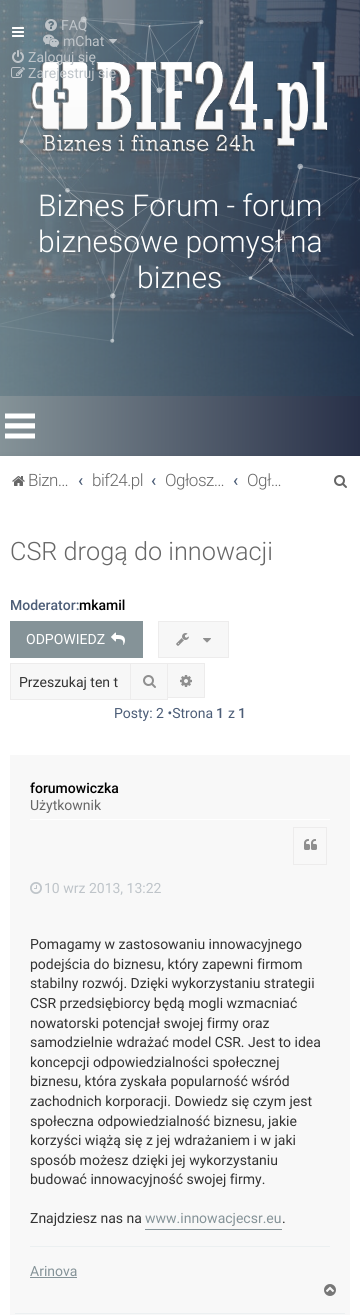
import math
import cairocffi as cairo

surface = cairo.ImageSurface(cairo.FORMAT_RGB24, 360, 1315)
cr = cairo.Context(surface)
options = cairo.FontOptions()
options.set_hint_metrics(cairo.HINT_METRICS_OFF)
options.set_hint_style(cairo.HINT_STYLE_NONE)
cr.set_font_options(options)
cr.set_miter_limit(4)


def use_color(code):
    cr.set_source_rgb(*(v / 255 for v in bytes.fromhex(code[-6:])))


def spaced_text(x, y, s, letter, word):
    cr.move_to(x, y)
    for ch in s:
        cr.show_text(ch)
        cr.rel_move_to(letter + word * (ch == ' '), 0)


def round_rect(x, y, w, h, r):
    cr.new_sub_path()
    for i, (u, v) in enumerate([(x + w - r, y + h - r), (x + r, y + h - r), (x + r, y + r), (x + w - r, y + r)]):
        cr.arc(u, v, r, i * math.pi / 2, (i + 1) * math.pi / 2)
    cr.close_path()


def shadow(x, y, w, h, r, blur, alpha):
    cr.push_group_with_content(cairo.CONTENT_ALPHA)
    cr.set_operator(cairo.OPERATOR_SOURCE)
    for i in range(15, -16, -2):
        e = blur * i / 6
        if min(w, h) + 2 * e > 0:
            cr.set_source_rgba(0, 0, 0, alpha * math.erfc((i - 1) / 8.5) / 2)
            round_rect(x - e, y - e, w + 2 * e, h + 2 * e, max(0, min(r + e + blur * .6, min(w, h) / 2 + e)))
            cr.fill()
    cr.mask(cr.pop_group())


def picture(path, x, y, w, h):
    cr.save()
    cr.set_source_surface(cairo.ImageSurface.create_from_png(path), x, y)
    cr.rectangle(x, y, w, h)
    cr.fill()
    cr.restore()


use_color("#ffffff")
cr.paint()
picture("img1.png", 0, 0, 360, 396)
picture("img8.png", 0, 16, 360, 327)
picture("img2.png", 12, 27, 12, 10)
picture("img3.png", 45, 19, 12, 12)
cr.select_font_face("Roboto")
cr.set_font_size(14)
use_color("#bec4c9")
cr.move_to(61, 30)
cr.show_text("FAQ")
picture("img4.png", 43, 34, 16, 14)
cr.move_to(63, 46)
cr.show_text("mChat")
picture("img5.png", 109, 39, 8, 5)
picture("img6.png", 12, 50, 12, 13)
picture("img9.png", 31, 61, 297, 92)
cr.move_to(28, 62)
cr.show_text("Zaloguj się")
picture("img7.png", 11, 67, 14, 11)
cr.move_to(28, 78)
cr.show_text("Zarejestruj się")
cr.select_font_face("Roboto Light")
cr.set_font_size(30)
use_color("#ffffff")
cr.move_to(38, 216)
cr.show_text("Biznes Forum - forum")
cr.move_to(38, 252)
cr.show_text("biznesowe pomysł na")
cr.move_to(137, 288)
cr.show_text("biznes")
gradient = cairo.LinearGradient(0, 426, 360, 426)
gradient.add_color_stop_rgba(0, 0.522, 0.576, 0.596, 1)
gradient.add_color_stop_rgba(1, 0.157, 0.188, 0.282, 1)
cr.set_source(gradient)
cr.rectangle(0, 396, 360, 60)
cr.fill()
picture("img10.png", 5, 413, 30, 26)
use_color("#000000")
shadow(0, 456, 360, 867, 0, 2.5, 0.05)
use_color("#ffffff")
cr.rectangle(0, 456, 360, 859)
cr.fill()
picture("img11.png", 12, 476, 13, 10)
cr.set_font_size(17)
use_color("#676767")
spaced_text(28, 486, "Bizn…", -0.5, 0)
cr.select_font_face("Roboto Medium")
use_color("#4c5d77")
cr.move_to(78, 486)
cr.show_text("‹")
cr.select_font_face("Roboto Light")
use_color("#676767")
spaced_text(92, 486, "bif24.pl", -0.5, 0)
cr.select_font_face("Roboto Medium")
use_color("#4c5d77")
cr.move_to(151, 486)
cr.show_text("‹")
cr.select_font_face("Roboto Light")
use_color("#676767")
spaced_text(165, 486, "Ogłosz…", -0.5, 0)
cr.select_font_face("Roboto Medium")
use_color("#4c5d77")
cr.move_to(233, 486)
cr.show_text("‹")
cr.select_font_face("Roboto Light")
use_color("#676767")
spaced_text(247, 486, "Ogł…", -0.5, 0)
picture("img12.png", 334, 475, 13, 13)
cr.set_font_size(25.25)
cr.move_to(10, 560)
cr.show_text("CSR drogą do innowacji")
cr.select_font_face("Roboto Medium")
cr.set_font_size(14)
use_color("#4c5d77")
cr.move_to(10, 610)
cr.show_text("Moderator:")
use_color("#000000")
cr.move_to(79, 610)
cr.show_text("mkamil")
use_color("#859398")
cr.rectangle(10, 621, 133, 37)
cr.fill()
cr.select_font_face("Roboto")
use_color("#ffffff")
cr.move_to(26, 644)
cr.show_text("ODPOWIEDZ")
picture("img13.png", 111, 632, 14, 13)
use_color("#f7f7f7")
cr.rectangle(158.5, 621.5, 70, 36)
cr.fill_preserve()
use_color("#edecec")
cr.set_line_width(1)
cr.stroke()
picture("img14.png", 176, 633, 13, 13)
picture("img15.png", 203, 638, 8, 5)
use_color("#f7f7f7")
cr.rectangle(11, 664, 119, 35)
cr.fill()
use_color("#edecec")
cr.rectangle(10, 663, 120, 1)
cr.fill()
cr.rectangle(10, 699, 120, 1)
cr.fill()
cr.rectangle(10, 663, 1, 37)
cr.fill()
use_color("#333333")
cr.move_to(19, 687)
cr.show_text("Przeszukaj ten t")
use_color("#f7f7f7")
cr.rectangle(130.5, 663.5, 37, 36)
cr.fill_preserve()
use_color("#edecec")
cr.stroke()
picture("img16.png", 143, 675, 13, 13)
use_color("#f7f7f7")
cr.rectangle(168, 664, 36, 33)
cr.fill()
use_color("#edecec")
cr.rectangle(168, 663, 37, 1)
cr.fill()
cr.rectangle(204, 663, 1, 35)
cr.fill()
cr.rectangle(168, 697, 37, 1)
cr.fill()
picture("img17.png", 180, 675, 12, 12)
use_color("#4c5d77")
cr.move_to(114, 718)
cr.show_text("Posty: 2 •Strona")
cr.select_font_face("Roboto Medium")
cr.move_to(216, 718)
cr.show_text("1")
cr.select_font_face("Roboto")
cr.move_to(228, 718)
cr.show_text("z")
cr.select_font_face("Roboto Medium")
cr.move_to(238, 718)
cr.show_text("1")
use_color("#f8f8f8")
cr.rectangle(10, 755, 340, 560)
cr.fill()
use_color("#ecf0f1")
cr.rectangle(15, 1313, 330, 1)
cr.fill()
use_color("#ffffff")
cr.rectangle(30, 819, 300, 1)
cr.fill()
use_color("#000000")
cr.move_to(30, 793)
cr.show_text("forumowiczka")
cr.select_font_face("Roboto")
use_color("#676767")
cr.move_to(30, 810)
cr.show_text("Użytkownik")
cr.rectangle(293.5, 827.5, 33, 37)
use_color("#edecec")
cr.stroke()
picture("img18.png", 304, 839, 13, 11)
picture("img19.png", 30, 882, 12, 12)
use_color("#bec4c9")
cr.move_to(44, 893)
cr.show_text("10 wrz 2013, 13:22")
use_color("#333333")
cr.move_to(30, 949)
cr.show_text("Pomagamy w zastosowaniu innowacyjnego")
cr.move_to(30, 969)
cr.show_text("podejścia do biznesu, który zapewni firmom")
cr.move_to(30, 988)
cr.show_text("stabilny rozwój. Dzięki wykorzystaniu strategii")
cr.move_to(30, 1008)
cr.show_text("CSR przedsiębiorcy będą mogli wzmacniać")
cr.move_to(30, 1028)
cr.show_text("nowatorski potencjał swojej firmy oraz")
cr.move_to(30, 1047)
cr.show_text("samodzielnie wdrażać model CSR. Jest to idea")
cr.move_to(30, 1067)
cr.show_text("koncepcji odpowiedzialności społecznej")
cr.move_to(30, 1086)
cr.show_text("biznesu, która zyskała popularność wśród")
cr.move_to(30, 1106)
cr.show_text("zachodnich korporacji. Dowiedz się czym jest")
cr.move_to(30, 1126)
cr.show_text("społeczna odpowiedzialność biznesu, jakie")
cr.move_to(30, 1145)
cr.show_text("korzyści wiążą się z jej wdrażaniem i w jaki")
cr.move_to(30, 1165)
cr.show_text("sposób możesz dzięki jej wykorzystaniu")
cr.move_to(30, 1184)
cr.show_text("budować innowacyjność swojej firmy.")
cr.move_to(30, 1223)
cr.show_text("Znajdziesz nas na")
use_color("#859398")
cr.rectangle(145, 1229, 137, 1)
cr.fill()
cr.move_to(145, 1223)
cr.show_text("www.innowacjecsr.eu")
use_color("#333333")
cr.move_to(282, 1223)
cr.show_text(".")
use_color("#ecf0f1")
cr.rectangle(30, 1246, 300, 1)
cr.fill()
use_color("#859398")
cr.move_to(30, 1276)
cr.show_text("Arinova")
cr.rectangle(30, 1277, 47, 1)
cr.fill()
picture("img20.png", 324, 1284, 12, 12)
surface.write_to_png("result.png")
